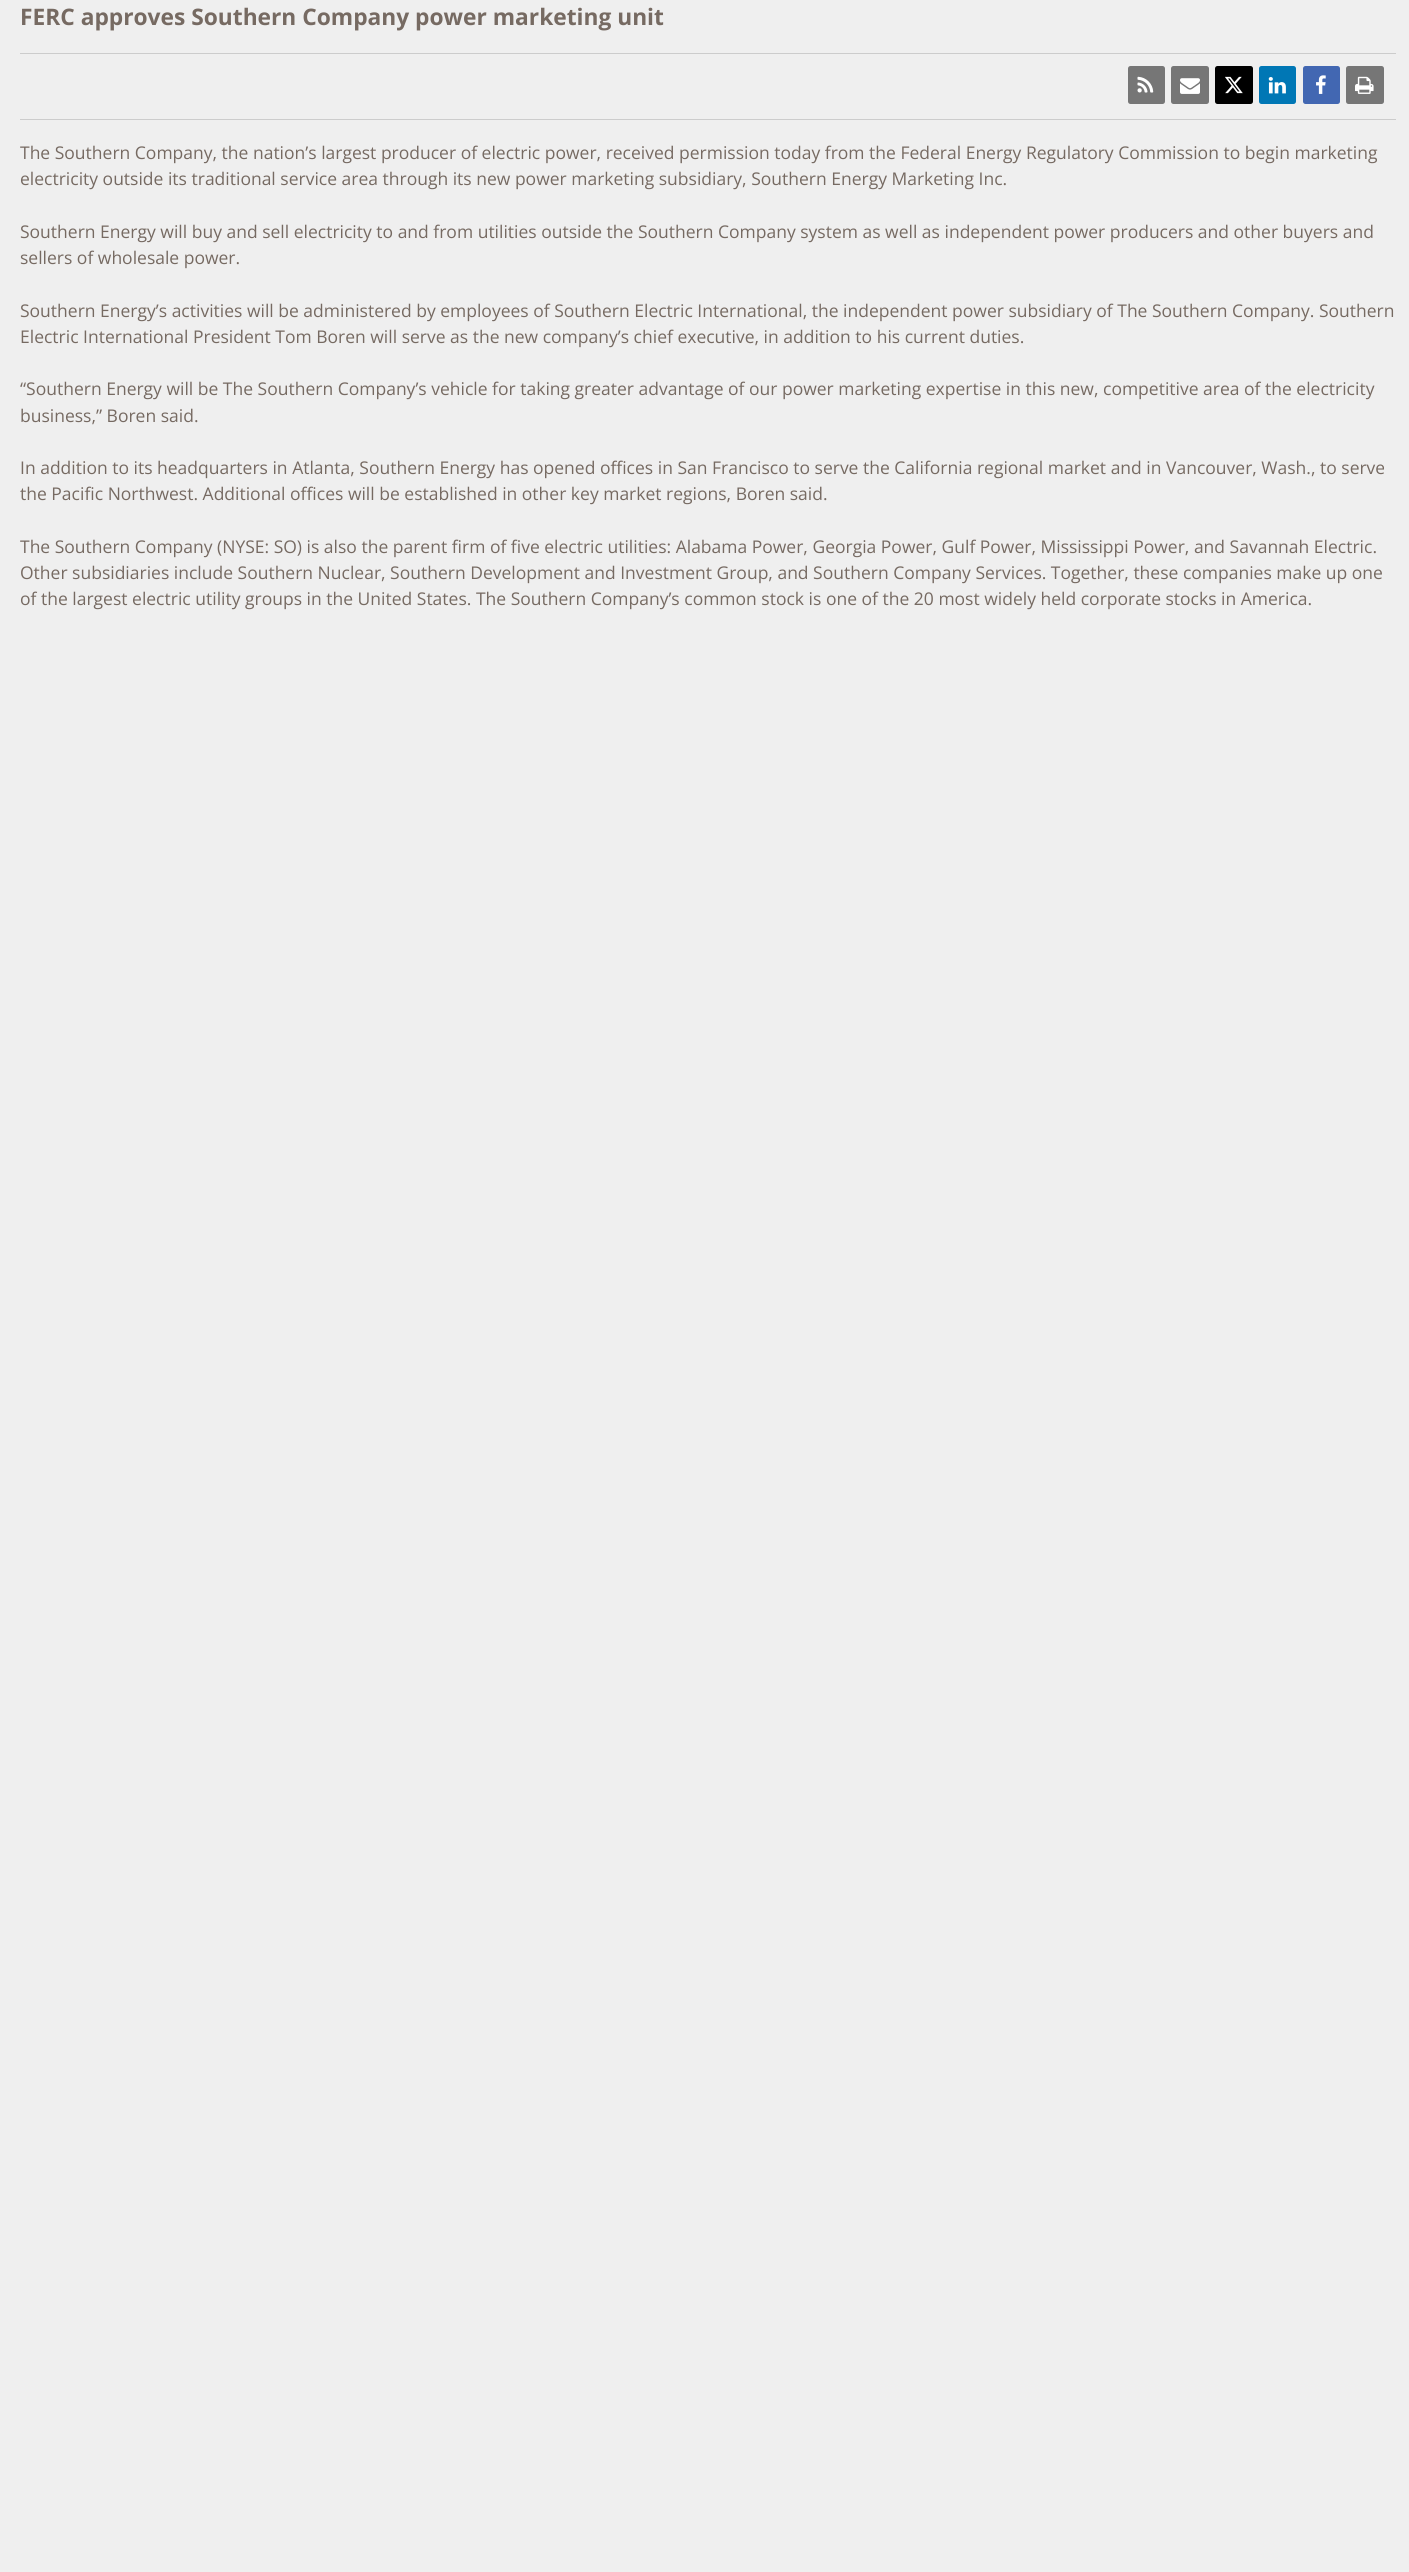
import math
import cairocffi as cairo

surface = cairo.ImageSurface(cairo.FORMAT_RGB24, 1409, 2572)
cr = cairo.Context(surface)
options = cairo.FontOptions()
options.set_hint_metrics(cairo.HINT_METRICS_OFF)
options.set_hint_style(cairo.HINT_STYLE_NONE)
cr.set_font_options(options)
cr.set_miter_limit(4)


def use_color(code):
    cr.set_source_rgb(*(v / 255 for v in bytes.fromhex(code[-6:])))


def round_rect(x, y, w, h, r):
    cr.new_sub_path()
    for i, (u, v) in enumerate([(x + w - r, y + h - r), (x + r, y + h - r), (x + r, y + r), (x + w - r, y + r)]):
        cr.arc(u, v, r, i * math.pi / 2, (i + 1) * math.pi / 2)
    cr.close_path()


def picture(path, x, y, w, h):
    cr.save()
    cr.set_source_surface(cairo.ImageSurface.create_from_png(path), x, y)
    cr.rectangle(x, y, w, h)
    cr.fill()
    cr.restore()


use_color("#efefef")
cr.paint()
cr.select_font_face("Open Sans", cairo.FONT_SLANT_NORMAL, cairo.FONT_WEIGHT_BOLD)
cr.set_font_size(22.75)
use_color("#766a62")
cr.move_to(20, 25)
cr.show_text("FERC approves Southern Company power marketing unit")
use_color("#cccccc")
cr.rectangle(20, 53, 1376, 1)
cr.fill()
cr.rectangle(20, 119, 1376, 1)
cr.fill()
use_color("#767676")
round_rect(1128, 66, 37, 38, 2.5)
cr.fill()
picture("img1.png", 1137, 76, 17, 17)
round_rect(1171, 66, 38, 38, 2.5)
cr.fill()
picture("img2.png", 1180, 78, 20, 16)
use_color("#000000")
round_rect(1215, 66, 38, 38, 2.5)
cr.fill()
picture("img3.png", 1225, 76, 18, 18)
use_color("#0077b5")
round_rect(1259, 66, 37, 38, 2.5)
cr.fill()
picture("img4.png", 1268, 77, 18, 17)
use_color("#4267b2")
round_rect(1303, 66, 37, 38, 2.5)
cr.fill()
picture("img5.png", 1316, 75, 10, 19)
use_color("#767676")
round_rect(1346, 66, 38, 38, 2.5)
cr.fill()
picture("img6.png", 1355, 76, 19, 18)
cr.select_font_face("Open Sans")
cr.set_font_size(17.5)
use_color("#766a62")
cr.move_to(20, 159)
cr.show_text("The Southern Company, the nation’s largest producer of electric power, received permission today from the Federal Energy Regulatory Commission to begin marketing")
cr.move_to(20, 185)
cr.show_text("electricity outside its traditional service area through its new power marketing subsidiary, Southern Energy Marketing Inc.")
cr.move_to(20, 238)
cr.show_text("Southern Energy will buy and sell electricity to and from utilities outside the Southern Company system as well as independent power producers and other buyers and")
cr.move_to(20, 264)
cr.show_text("sellers of wholesale power.")
cr.move_to(20, 317)
cr.show_text("Southern Energy’s activities will be administered by employees of Southern Electric International, the independent power subsidiary of The Southern Company. Southern")
cr.move_to(20, 343)
cr.show_text("Electric International President Tom Boren will serve as the new company’s chief executive, in addition to his current duties.")
cr.move_to(20, 395)
cr.show_text("“Southern Energy will be The Southern Company’s vehicle for taking greater advantage of our power marketing expertise in this new, competitive area of the electricity")
cr.move_to(20, 422)
cr.show_text("business,” Boren said.")
cr.move_to(20, 474)
cr.show_text("In addition to its headquarters in Atlanta, Southern Energy has opened offices in San Francisco to serve the California regional market and in Vancouver, Wash., to serve")
cr.move_to(20, 500)
cr.show_text("the Pacific Northwest. Additional offices will be established in other key market regions, Boren said.")
cr.move_to(20, 553)
cr.show_text("The Southern Company (NYSE: SO) is also the parent firm of five electric utilities: Alabama Power, Georgia Power, Gulf Power, Mississippi Power, and Savannah Electric.")
cr.move_to(20, 579)
cr.show_text("Other subsidiaries include Southern Nuclear, Southern Development and Investment Group, and Southern Company Services. Together, these companies make up one")
cr.move_to(20, 605)
cr.show_text("of the largest electric utility groups in the United States. The Southern Company’s common stock is one of the 20 most widely held corporate stocks in America.")
surface.write_to_png("result.png")
